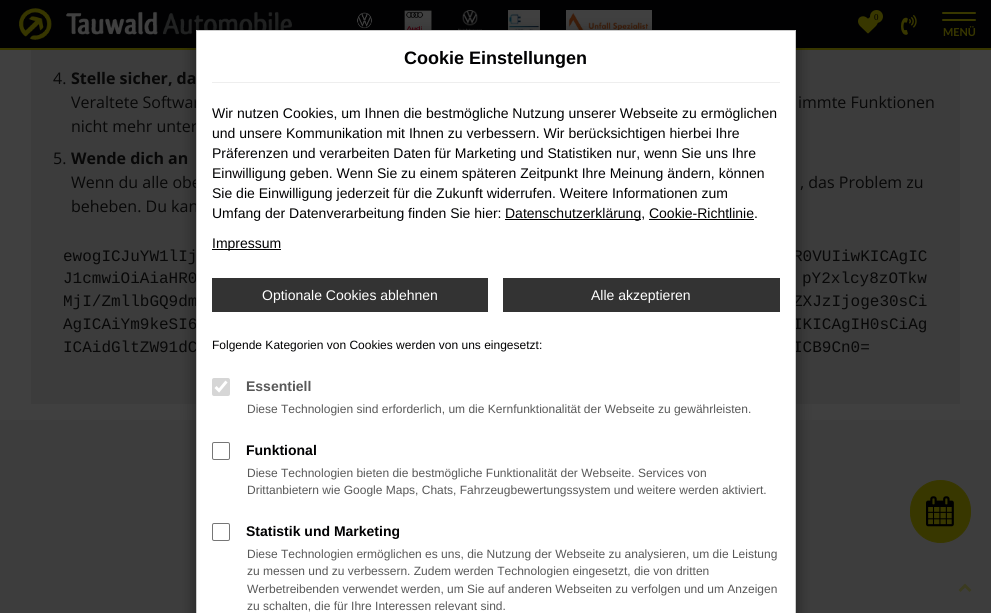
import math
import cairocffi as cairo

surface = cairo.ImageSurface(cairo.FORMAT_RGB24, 991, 613)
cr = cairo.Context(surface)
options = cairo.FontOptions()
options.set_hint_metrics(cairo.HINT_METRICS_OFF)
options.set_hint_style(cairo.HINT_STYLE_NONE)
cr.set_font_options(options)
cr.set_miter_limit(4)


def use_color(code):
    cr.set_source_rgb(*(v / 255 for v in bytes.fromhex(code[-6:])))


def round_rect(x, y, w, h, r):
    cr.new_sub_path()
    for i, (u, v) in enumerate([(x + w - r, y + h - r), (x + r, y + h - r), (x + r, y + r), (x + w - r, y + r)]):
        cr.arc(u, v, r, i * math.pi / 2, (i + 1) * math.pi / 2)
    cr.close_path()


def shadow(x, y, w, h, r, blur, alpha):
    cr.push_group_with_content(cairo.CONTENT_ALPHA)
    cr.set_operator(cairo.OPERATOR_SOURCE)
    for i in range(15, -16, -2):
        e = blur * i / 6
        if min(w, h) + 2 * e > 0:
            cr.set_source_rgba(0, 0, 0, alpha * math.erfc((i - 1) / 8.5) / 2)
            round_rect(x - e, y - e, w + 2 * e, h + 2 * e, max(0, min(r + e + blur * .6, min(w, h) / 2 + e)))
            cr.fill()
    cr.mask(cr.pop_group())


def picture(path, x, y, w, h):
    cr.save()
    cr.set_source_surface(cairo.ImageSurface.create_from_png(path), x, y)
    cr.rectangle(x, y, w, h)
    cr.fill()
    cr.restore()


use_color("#404040")
cr.paint()
use_color("#010102")
cr.rectangle(0, 0, 991, 48)
cr.fill()
use_color("#383700")
cr.rectangle(0, 48, 991, 2)
cr.fill()
picture("img1.png", 19, 8, 273, 32)
picture("img2.png", 357, 12, 15, 17)
picture("img3.png", 404, 10, 28, 20)
picture("img4.png", 458, 10, 24, 20)
picture("img5.png", 508, 10, 32, 20)
picture("img6.png", 566, 10, 86, 20)
picture("img7.png", 858, 16, 20, 18)
cr.arc(876.5, 16.5, 6.5, 0, 2 * math.pi)
cr.fill()
cr.select_font_face("Liberation Serif")
cr.set_font_size(9)
use_color("#010102")
cr.move_to(874, 20)
cr.show_text("0")
picture("img8.png", 901, 15, 16, 20)
use_color("#383700")
round_rect(942, 12, 34, 2, 1)
cr.fill()
round_rect(942, 19, 34, 2, 1)
cr.fill()
cr.select_font_face("Lato", cairo.FONT_SLANT_NORMAL, cairo.FONT_WEIGHT_BOLD)
cr.set_font_size(11)
cr.move_to(943, 36)
cr.show_text("MENÜ")
use_color("#3c3c3c")
cr.rectangle(31, 50, 929, 354)
cr.fill()
cr.select_font_face("Open Sans")
cr.set_font_size(16)
use_color("#080808")
cr.move_to(53, 84)
cr.show_text("4.")
cr.select_font_face("Open Sans", cairo.FONT_SLANT_NORMAL, cairo.FONT_WEIGHT_BOLD)
cr.move_to(71, 84)
cr.show_text("Stelle sicher, da")
cr.select_font_face("Open Sans")
cr.move_to(71, 108)
cr.show_text("Veraltete Softwar")
cr.move_to(798, 108)
cr.show_text("immte Funktionen")
cr.move_to(71, 132)
cr.show_text("nicht mehr unter")
cr.move_to(53, 164)
cr.show_text("5.")
cr.select_font_face("Open Sans", cairo.FONT_SLANT_NORMAL, cairo.FONT_WEIGHT_BOLD)
cr.move_to(71, 164)
cr.show_text("Wende dich an")
cr.select_font_face("Open Sans")
cr.move_to(71, 188)
cr.show_text("Wenn du alle obe")
cr.move_to(800, 188)
cr.show_text(", das Problem zu")
cr.move_to(71, 212)
cr.show_text("beheben. Du kan")
cr.select_font_face("Liberation Mono")
cr.move_to(63, 261)
cr.show_text("ewogICJuYW1lIj")
cr.move_to(793, 261)
cr.show_text("R0VUIiwKICAgIC")
cr.move_to(63, 283)
cr.show_text("J1cmwiOiAiaHR0")
cr.move_to(802, 283)
cr.show_text("pY2xlcy8zOTkw")
cr.move_to(63, 306)
cr.show_text("MjI/ZmllbGQ9dm")
cr.move_to(793, 306)
cr.show_text("ZXJzIjoge30sCi")
cr.move_to(63, 329)
cr.show_text("AgICAiYm9keSI6")
cr.move_to(793, 329)
cr.show_text("IKICAgIH0sCiAg")
cr.move_to(63, 352)
cr.show_text("ICAidGltZW91dC")
cr.move_to(793, 352)
cr.show_text("ICB9Cn0=")
use_color("#3d3d3d")
cr.rectangle(0, 420, 991, 193)
cr.fill()
picture("img9.png", 958, 583, 14, 9)
use_color("#000000")
shadow(196, 35, 600, 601, 0, 7.5, 0.5)
use_color("#ffffff")
cr.rectangle(196.5, 30.5, 599, 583)
cr.fill_preserve()
use_color("#cccccc")
cr.set_line_width(1)
cr.stroke()
use_color("#eeeeee")
cr.rectangle(212, 82, 568, 1)
cr.fill()
cr.select_font_face("Liberation Sans", cairo.FONT_SLANT_NORMAL, cairo.FONT_WEIGHT_BOLD)
cr.set_font_size(18)
use_color("#010102")
cr.move_to(404, 64)
cr.show_text("Cookie Einstellungen")
cr.select_font_face("Liberation Sans")
cr.set_font_size(14)
cr.move_to(212, 118)
cr.show_text("Wir nutzen Cookies, um Ihnen die bestmögliche Nutzung unserer Webseite zu ermöglichen")
cr.move_to(212, 138)
cr.show_text("und unsere Kommunikation mit Ihnen zu verbessern. Wir berücksichtigen hierbei Ihre")
cr.move_to(212, 158)
cr.show_text("Präferenzen und verarbeiten Daten für Marketing und Statistiken nur, wenn Sie uns Ihre")
cr.move_to(212, 178)
cr.show_text("Einwilligung geben. Wenn Sie zu einem späteren Zeitpunkt Ihre Meinung ändern, können")
cr.move_to(212, 198)
cr.show_text("Sie die Einwilligung jederzeit für die Zukunft widerrufen. Weitere Informationen zum")
cr.move_to(212, 218)
cr.show_text("Umfang der Datenverarbeitung finden Sie hier:")
use_color("#000000")
cr.rectangle(505, 219, 136, 1)
cr.fill()
use_color("#010102")
cr.move_to(505, 218)
cr.show_text("Datenschutzerklärung, Cookie-Richtlinie.")
use_color("#000000")
cr.rectangle(649, 219, 105, 1)
cr.fill()
cr.rectangle(212, 249, 69, 1)
cr.fill()
use_color("#010102")
cr.move_to(212, 248)
cr.show_text("Impressum")
use_color("#333333")
cr.rectangle(212, 278, 276, 34)
cr.fill()
use_color("#ffffff")
cr.move_to(262, 300)
cr.show_text("Optionale Cookies ablehnen")
use_color("#333333")
cr.rectangle(503, 278, 277, 34)
cr.fill()
use_color("#ffffff")
cr.move_to(591, 300)
cr.show_text("Alle akzeptieren")
cr.set_font_size(12)
use_color("#010102")
cr.move_to(212, 349)
cr.show_text("Folgende Kategorien von Cookies werden von uns eingesetzt:")
use_color("#d6d6d6")
round_rect(212, 378, 18, 18, 2)
cr.fill()
cr.new_path()
cr.move_to(215.5, 387)
cr.line_to(219, 390.5)
cr.line_to(226.5, 381.5)
use_color("#ffffff")
cr.set_line_width(2.9)
cr.stroke()
cr.select_font_face("Liberation Sans", cairo.FONT_SLANT_NORMAL, cairo.FONT_WEIGHT_BOLD)
cr.set_font_size(14)
use_color("#585858")
cr.move_to(246, 391)
cr.show_text("Essentiell")
cr.select_font_face("Liberation Sans")
cr.set_font_size(12)
cr.move_to(247, 413)
cr.show_text("Diese Technologien sind erforderlich, um die Kernfunktionalität der Webseite zu gewährleisten.")
round_rect(212.5, 442.5, 17, 17, 1.5)
use_color("#767676")
cr.set_line_width(1)
cr.stroke()
cr.select_font_face("Liberation Sans", cairo.FONT_SLANT_NORMAL, cairo.FONT_WEIGHT_BOLD)
cr.set_font_size(14)
use_color("#010102")
cr.move_to(246, 455)
cr.show_text("Funktional")
cr.select_font_face("Liberation Sans")
cr.set_font_size(12)
use_color("#585858")
cr.move_to(247, 477)
cr.show_text("Diese Technologien bieten die bestmögliche Funktionalität der Webseite. Services von")
cr.move_to(247, 494)
cr.show_text("Drittanbietern wie Google Maps, Chats, Fahrzeugbewertungssystem und weitere werden aktiviert.")
round_rect(212.5, 523.5, 17, 17, 1.5)
use_color("#767676")
cr.stroke()
cr.select_font_face("Liberation Sans", cairo.FONT_SLANT_NORMAL, cairo.FONT_WEIGHT_BOLD)
cr.set_font_size(14)
use_color("#010102")
cr.move_to(246, 536)
cr.show_text("Statistik und Marketing")
cr.select_font_face("Liberation Sans")
cr.set_font_size(12)
use_color("#585858")
cr.move_to(247, 558)
cr.show_text("Diese Technologien ermöglichen es uns, die Nutzung der Webseite zu analysieren, um die Leistung")
cr.move_to(247, 575)
cr.show_text("zu messen und zu verbessern. Zudem werden Technologien eingesetzt, die von dritten")
cr.move_to(247, 593)
cr.show_text("Werbetreibenden verwendet werden, um Sie auf anderen Webseiten zu verfolgen und um Anzeigen")
cr.move_to(247, 610)
cr.show_text("zu schalten, die für Ihre Interessen relevant sind.")
use_color("#383700")
round_rect(910.5, 480.5, 60, 62, 30)
cr.fill_preserve()
cr.stroke()
picture("img10.png", 926, 496, 28, 31)
surface.write_to_png("result.png")
